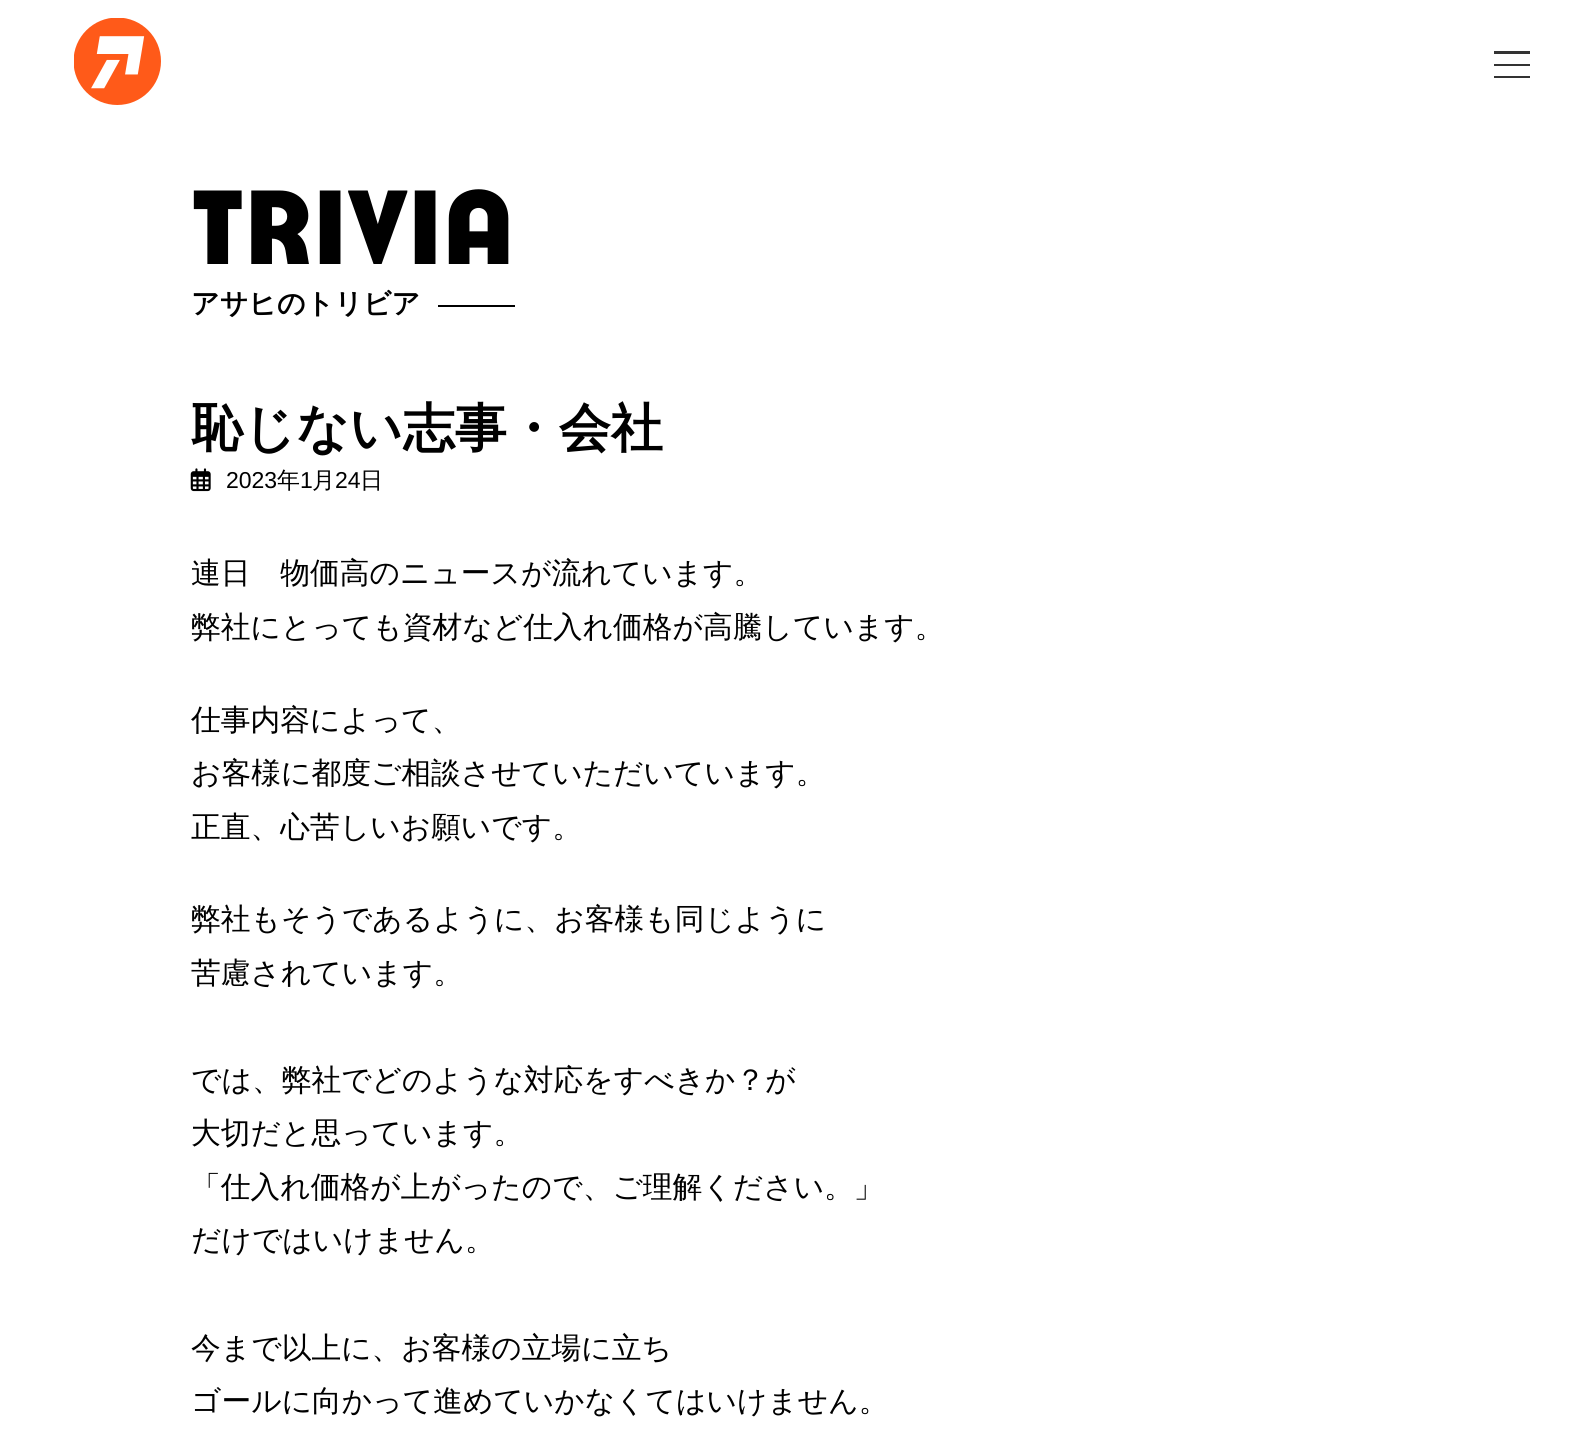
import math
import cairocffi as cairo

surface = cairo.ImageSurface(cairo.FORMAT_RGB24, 1588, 1448)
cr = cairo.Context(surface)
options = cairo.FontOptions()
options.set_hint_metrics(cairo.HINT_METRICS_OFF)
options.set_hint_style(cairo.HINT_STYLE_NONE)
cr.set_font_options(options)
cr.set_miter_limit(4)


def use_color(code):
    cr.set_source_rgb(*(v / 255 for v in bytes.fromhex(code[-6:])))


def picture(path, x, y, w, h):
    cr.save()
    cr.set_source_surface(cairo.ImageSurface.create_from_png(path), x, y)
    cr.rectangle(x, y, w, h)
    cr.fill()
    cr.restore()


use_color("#ffffff")
cr.paint()
picture("img1.png", 74, 18, 87, 87)
use_color("#333333")
cr.rectangle(1494, 51, 36, 3)
cr.fill()
cr.rectangle(1494, 64, 36, 2)
cr.fill()
cr.rectangle(1494, 76, 36, 2)
cr.fill()
cr.select_font_face("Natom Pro", cairo.FONT_SLANT_NORMAL, cairo.FONT_WEIGHT_BOLD)
cr.set_font_size(105)
use_color("#000000")
cr.move_to(191, 264)
cr.show_text("trivia")
cr.select_font_face("WenQuanYi Zen Hei", cairo.FONT_SLANT_NORMAL, cairo.FONT_WEIGHT_BOLD)
cr.set_font_size(28)
cr.move_to(191, 313)
cr.show_text("アサヒのトリビア")
cr.rectangle(438, 305, 77, 2)
cr.fill()
cr.set_font_size(52)
cr.move_to(191, 446)
cr.show_text("恥じない志事・会社")
picture("img2.png", 190, 468, 21, 24)
cr.select_font_face("Liberation Sans")
cr.set_font_size(23)
cr.move_to(226, 488)
cr.show_text("2023")
cr.select_font_face("WenQuanYi Zen Hei Medium")
cr.move_to(277, 488)
cr.show_text("年")
cr.select_font_face("Liberation Sans")
cr.move_to(300, 488)
cr.show_text("1")
cr.select_font_face("WenQuanYi Zen Hei Medium")
cr.move_to(312, 488)
cr.show_text("月")
cr.select_font_face("Liberation Sans")
cr.move_to(335, 488)
cr.show_text("24")
cr.select_font_face("WenQuanYi Zen Hei Medium")
cr.move_to(360, 488)
cr.show_text("日")
cr.set_font_size(29.75)
cr.move_to(191, 583)
cr.show_text("連日　物価高のニュースが流れています。")
cr.move_to(191, 637)
cr.show_text("弊社にとっても資材など仕入れ価格が高騰しています。")
cr.move_to(191, 730)
cr.show_text("仕事内容によって、")
cr.move_to(191, 783)
cr.show_text("お客様に都度ご相談させていただいています。")
cr.move_to(191, 837)
cr.show_text("正直、心苦しいお願いです。")
cr.move_to(191, 929)
cr.show_text("弊社もそうであるように、お客様も同じように")
cr.move_to(191, 983)
cr.show_text("苦慮されています。")
cr.move_to(191, 1090)
cr.show_text("では、弊社でどのような対応をすべきか？が")
cr.move_to(191, 1143)
cr.show_text("大切だと思っています。")
cr.move_to(191, 1197)
cr.show_text("「仕入れ価格が上がったので、ご理解ください。」")
cr.move_to(191, 1250)
cr.show_text("だけではいけません。")
cr.move_to(191, 1358)
cr.show_text("今まで以上に、お客様の立場に立ち")
cr.move_to(191, 1411)
cr.show_text("ゴールに向かって進めていかなくてはいけません。")
surface.write_to_png("result.png")
